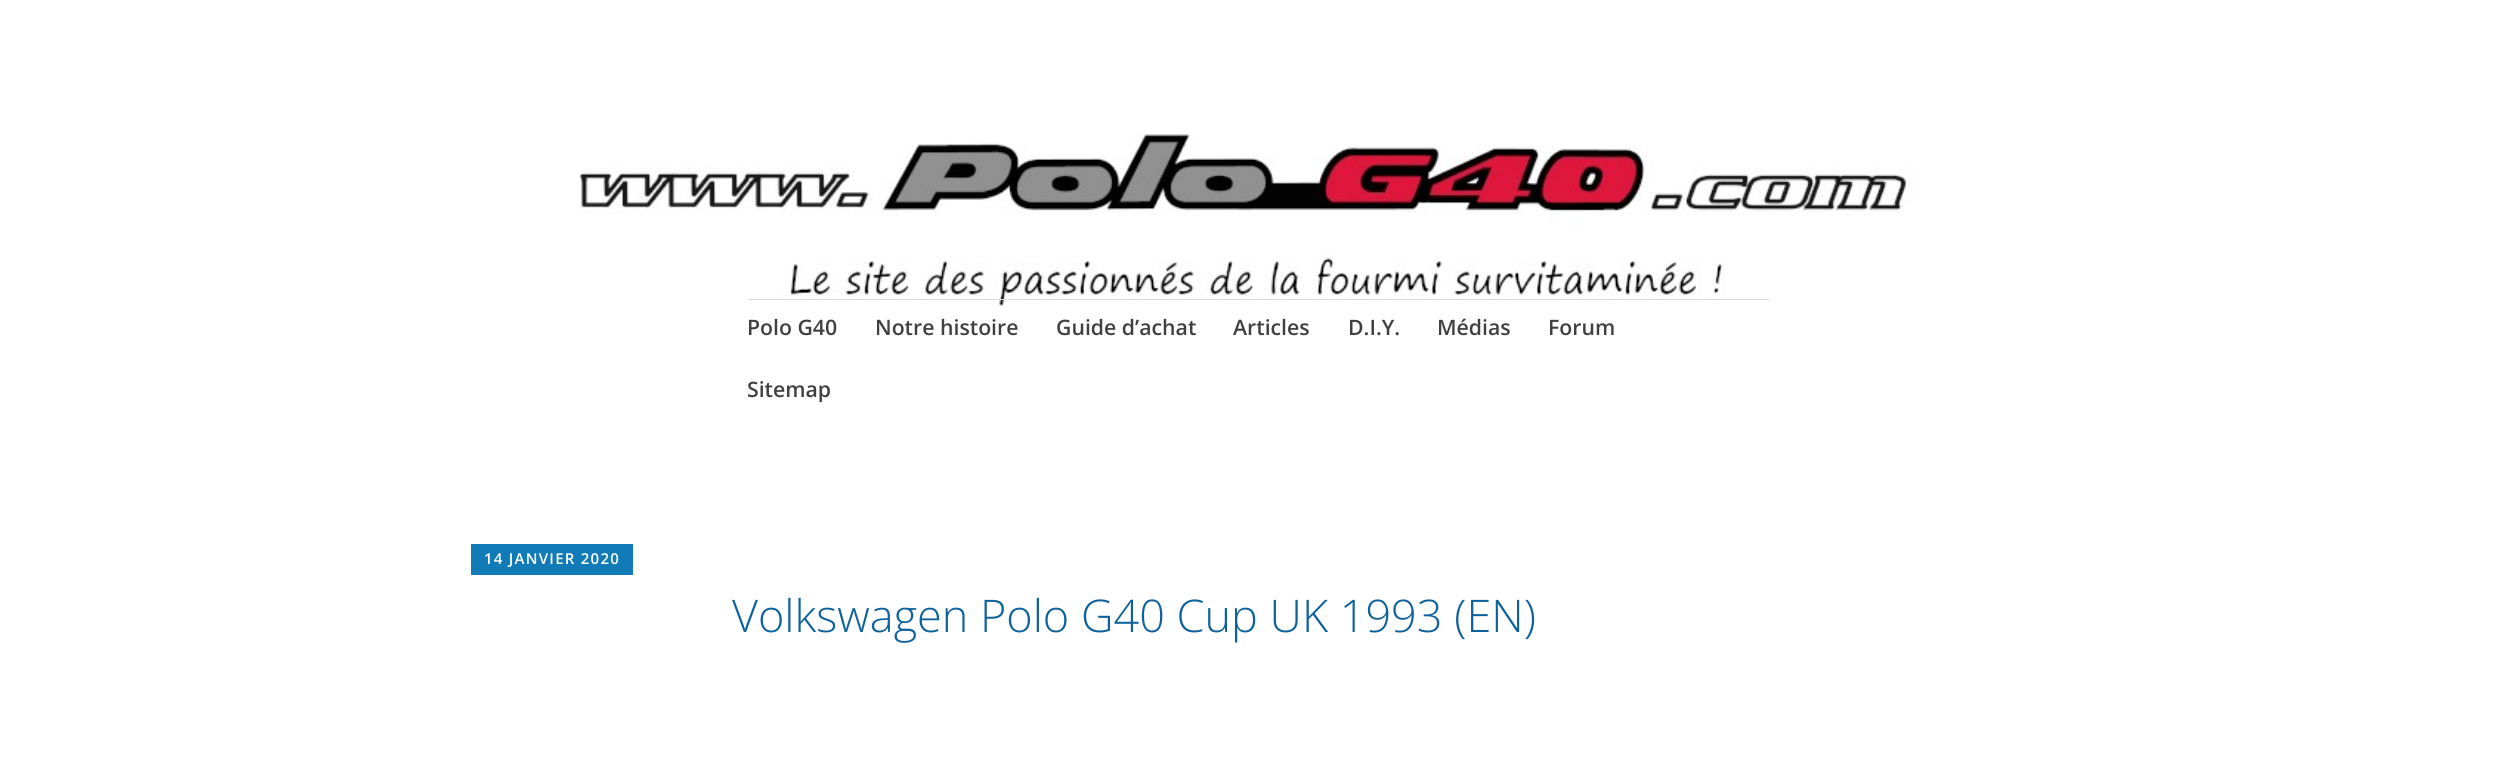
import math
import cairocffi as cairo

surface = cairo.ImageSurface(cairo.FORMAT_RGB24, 2516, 764)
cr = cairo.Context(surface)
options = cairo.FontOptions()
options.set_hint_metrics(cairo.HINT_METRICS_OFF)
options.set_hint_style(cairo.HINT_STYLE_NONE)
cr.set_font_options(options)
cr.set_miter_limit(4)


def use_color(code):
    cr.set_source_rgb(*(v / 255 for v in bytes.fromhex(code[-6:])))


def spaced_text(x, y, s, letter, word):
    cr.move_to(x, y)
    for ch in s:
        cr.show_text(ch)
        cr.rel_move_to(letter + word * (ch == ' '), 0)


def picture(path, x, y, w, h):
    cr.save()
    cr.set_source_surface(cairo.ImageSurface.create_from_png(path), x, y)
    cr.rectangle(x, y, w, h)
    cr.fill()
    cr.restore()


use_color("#ffffff")
cr.paint()
picture("img1.png", 579, 133, 1334, 174)
use_color("#d9d9d9")
cr.rectangle(748, 299, 1021, 1)
cr.fill()
cr.select_font_face("Open Sans SemiBold")
cr.set_font_size(21.25)
use_color("#404040")
cr.move_to(747, 335)
cr.show_text("Polo G40")
cr.move_to(875, 335)
cr.show_text("Notre histoire")
cr.move_to(1056, 335)
cr.show_text("Guide d’achat")
cr.move_to(1233, 335)
cr.show_text("Articles")
cr.move_to(1348, 335)
cr.show_text("D.I.Y.")
cr.move_to(1437, 335)
cr.show_text("Médias")
cr.move_to(1548, 335)
cr.show_text("Forum")
cr.move_to(747, 397)
cr.show_text("Sitemap")
use_color("#117bb8")
cr.rectangle(471, 544, 162, 31)
cr.fill()
cr.set_font_size(15)
use_color("#ffffff")
spaced_text(484, 564, "14 JANVIER 2020", 1.25, 0)
cr.select_font_face("Open Sans Light")
cr.set_font_size(45)
use_color("#0e629c")
cr.move_to(732, 632)
cr.show_text("Volkswagen Polo G40 Cup UK 1993 (EN)")
surface.write_to_png("result.png")
